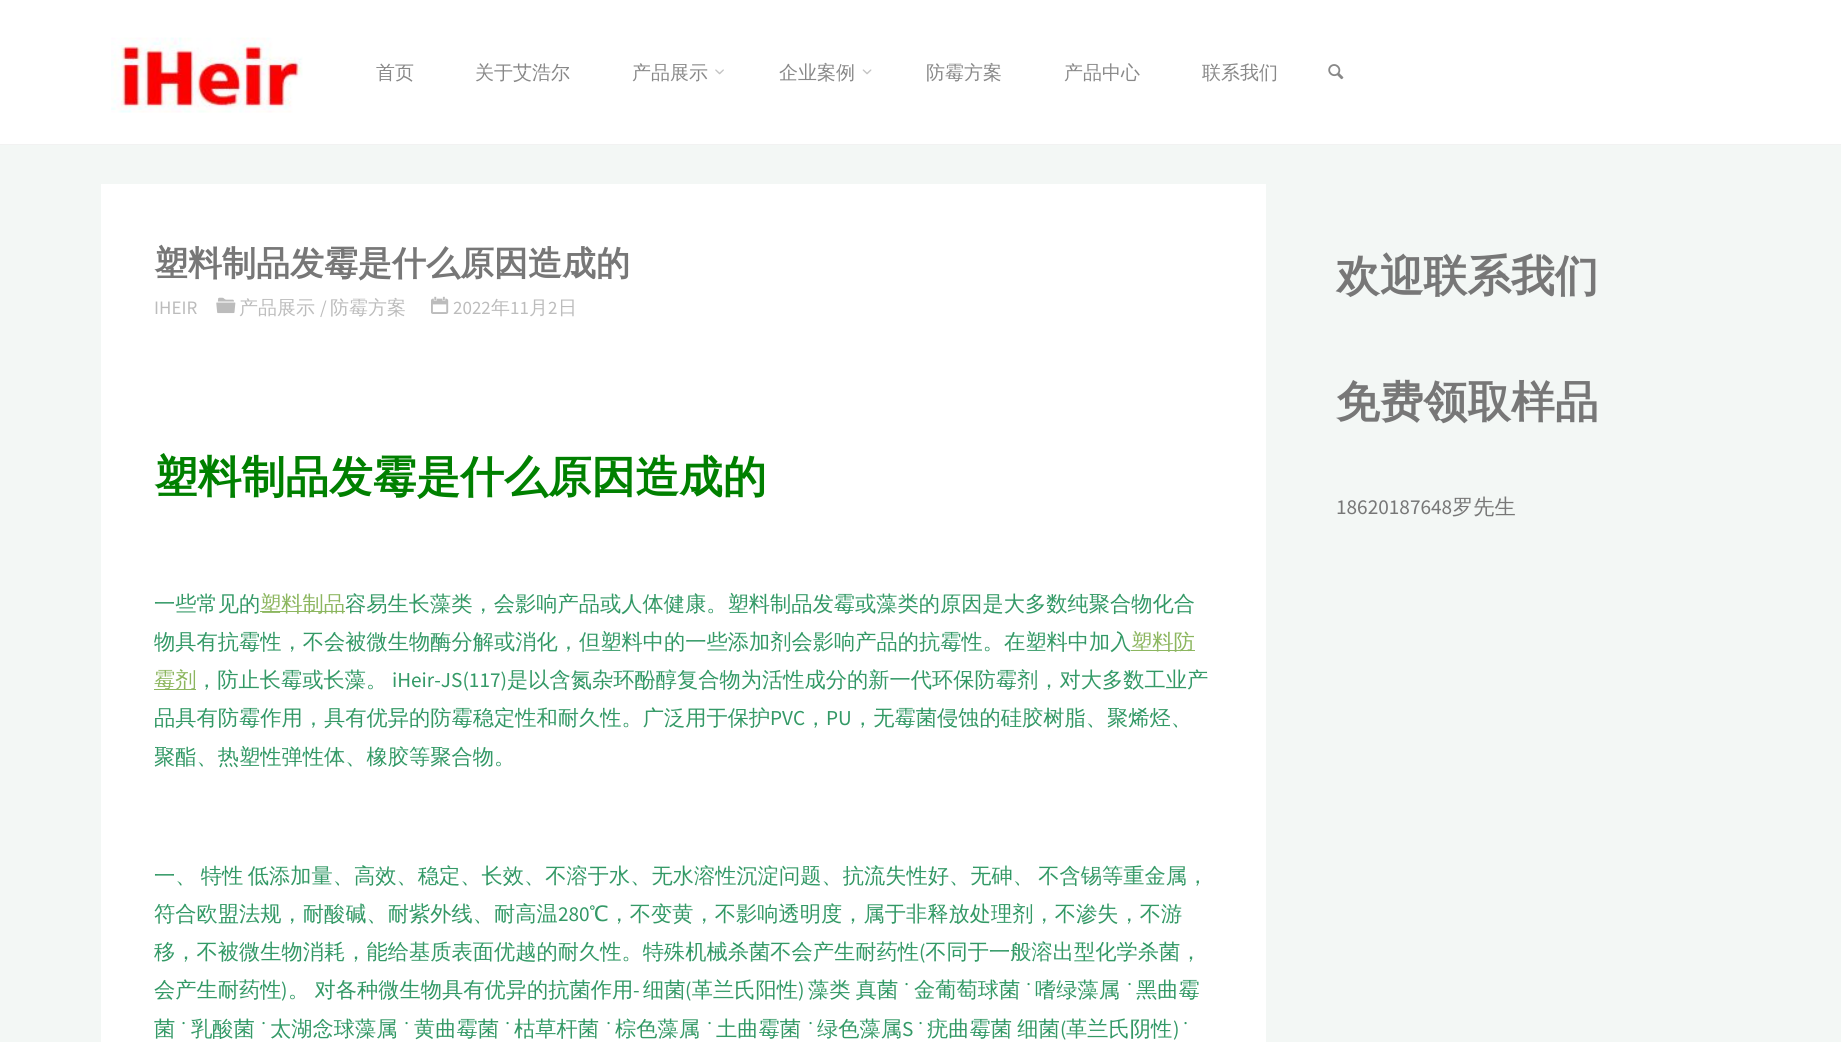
import math
import cairocffi as cairo

surface = cairo.ImageSurface(cairo.FORMAT_RGB24, 1841, 1042)
cr = cairo.Context(surface)
options = cairo.FontOptions()
options.set_hint_metrics(cairo.HINT_METRICS_OFF)
options.set_hint_style(cairo.HINT_STYLE_NONE)
cr.set_font_options(options)
cr.set_miter_limit(4)


def use_color(code):
    cr.set_source_rgb(*(v / 255 for v in bytes.fromhex(code[-6:])))


def spaced_text(x, y, s, letter, word):
    cr.move_to(x, y)
    for ch in s:
        cr.show_text(ch)
        cr.rel_move_to(letter + word * (ch == ' '), 0)


def picture(path, x, y, w, h):
    cr.save()
    cr.set_source_surface(cairo.ImageSurface.create_from_png(path), x, y)
    cr.rectangle(x, y, w, h)
    cr.fill()
    cr.restore()


use_color("#f3f7f5")
cr.paint()
use_color("#ffffff")
cr.rectangle(0, 0, 1841, 144)
cr.fill()
use_color("#f2f2f2")
cr.rectangle(0, 144, 1841, 1)
cr.fill()
picture("img1.png", 111, 37, 192, 76)
cr.select_font_face("WenQuanYi Zen Hei Medium")
cr.set_font_size(19)
use_color("#888888")
cr.move_to(376, 79)
cr.show_text("首页")
cr.move_to(475, 79)
cr.show_text("关于艾浩尔")
cr.move_to(632, 79)
cr.show_text("产品展示")
picture("img2.png", 715, 69, 9, 6)
cr.move_to(779, 79)
cr.show_text("企业案例")
picture("img3.png", 862, 69, 10, 6)
cr.move_to(926, 79)
cr.show_text("防霉方案")
cr.move_to(1064, 79)
cr.show_text("产品中心")
cr.move_to(1202, 79)
cr.show_text("联系我们")
picture("img4.png", 1328, 64, 16, 16)
use_color("#ffffff")
cr.rectangle(101, 184, 1165, 858)
cr.fill()
cr.select_font_face("WenQuanYi Zen Hei", cairo.FONT_SLANT_NORMAL, cairo.FONT_WEIGHT_BOLD)
cr.set_font_size(34)
use_color("#777777")
cr.move_to(154, 275)
cr.show_text("塑料制品发霉是什么原因造成的")
cr.select_font_face("Source Sans Pro")
cr.set_font_size(19)
use_color("#bcbcbc")
cr.move_to(154, 314)
cr.show_text("IHEIR")
picture("img5.png", 216, 297, 20, 17)
cr.select_font_face("WenQuanYi Zen Hei Medium")
cr.move_to(239, 314)
cr.show_text("产品展示")
cr.select_font_face("Source Sans Pro")
cr.move_to(320, 314)
cr.show_text("/")
cr.select_font_face("WenQuanYi Zen Hei Medium")
cr.move_to(330, 314)
cr.show_text("防霉方案")
picture("img6.png", 431, 296, 18, 18)
cr.select_font_face("Source Sans Pro")
cr.move_to(453, 314)
cr.show_text("2022")
cr.select_font_face("WenQuanYi Zen Hei Medium")
cr.move_to(491, 314)
cr.show_text("年")
cr.select_font_face("Source Sans Pro")
cr.move_to(510, 314)
cr.show_text("11")
cr.select_font_face("WenQuanYi Zen Hei Medium")
cr.move_to(529, 314)
cr.show_text("月")
cr.select_font_face("Source Sans Pro")
cr.move_to(548, 314)
cr.show_text("2")
cr.select_font_face("WenQuanYi Zen Hei Medium")
cr.move_to(558, 314)
cr.show_text("日")
cr.select_font_face("WenQuanYi Zen Hei", cairo.FONT_SLANT_NORMAL, cairo.FONT_WEIGHT_BOLD)
cr.set_font_size(43.75)
use_color("#008000")
cr.move_to(154, 492)
cr.show_text("塑料制品发霉是什么原因造成的")
cr.select_font_face("WenQuanYi Zen Hei Medium")
cr.set_font_size(21.25)
use_color("#339966")
cr.move_to(154, 611)
cr.show_text("一些常见的")
use_color("#8cb65f")
cr.rectangle(260, 611, 85, 1)
cr.fill()
cr.move_to(260, 611)
cr.show_text("塑料制品")
use_color("#339966")
cr.move_to(345, 611)
cr.show_text("容易生长藻类，会影响产品或人体健康。塑料制品发霉或藻类的原因是大多数纯聚合物化合")
cr.move_to(154, 649)
cr.show_text("物具有抗霉性，不会被微生物酶分解或消化，但塑料中的一些添加剂会影响产品的抗霉性。在塑料中加入")
use_color("#8cb65f")
cr.rectangle(1131, 650, 64, 1)
cr.fill()
cr.move_to(1131, 649)
cr.show_text("塑料防")
cr.rectangle(154, 689, 42, 1)
cr.fill()
cr.move_to(154, 687)
cr.show_text("霉剂")
use_color("#339966")
cr.move_to(196, 687)
cr.show_text("，防止长霉或长藻。")
cr.select_font_face("Source Sans Pro")
cr.move_to(392, 687)
cr.show_text("iHeir-JS(117)")
cr.select_font_face("WenQuanYi Zen Hei Medium")
cr.move_to(507, 687)
cr.show_text("是以含氮杂环酚醇复合物为活性成分的新一代环保防霉剂，对大多数工业产")
cr.move_to(154, 725)
cr.show_text("品具有防霉作用，具有优异的防霉稳定性和耐久性。广泛用于保护")
cr.select_font_face("Source Sans Pro")
cr.move_to(770, 725)
cr.show_text("PVC")
cr.select_font_face("WenQuanYi Zen Hei Medium")
cr.move_to(805, 725)
cr.show_text("，")
cr.select_font_face("Source Sans Pro")
cr.move_to(826, 725)
cr.show_text("PU")
cr.select_font_face("WenQuanYi Zen Hei Medium")
cr.move_to(852, 725)
cr.show_text("，无霉菌侵蚀的硅胶树脂、聚烯烃、")
cr.move_to(154, 764)
cr.show_text("聚酯、热塑性弹性体、橡胶等聚合物。")
spaced_text(154, 883, "一、 特性 低添加量、高效、稳定、长效、不溶于水、无水溶性沉淀问题、抗流失性好、无砷、 不含锡等重金属，", 0, -2)
cr.move_to(154, 921)
cr.show_text("符合欧盟法规，耐酸碱、耐紫外线、耐高温")
cr.select_font_face("Source Sans Pro")
cr.move_to(558, 921)
cr.show_text("280")
cr.select_font_face("WenQuanYi Zen Hei Medium")
cr.move_to(589, 921)
cr.show_text("℃，不变黄，不影响透明度，属于非释放处理剂，不渗失，不游")
cr.move_to(154, 959)
cr.show_text("移，不被微生物消耗，能给基质表面优越的耐久性。特殊机械杀菌不会产生耐药性 不同于一般溶出型化学杀菌，")
cr.select_font_face("Source Sans Pro")
cr.move_to(919, 959)
cr.show_text("(")
cr.select_font_face("WenQuanYi Zen Hei Medium")
cr.move_to(154, 997)
cr.show_text("会产生耐药性")
cr.select_font_face("Source Sans Pro")
cr.move_to(281, 997)
cr.show_text(")")
cr.select_font_face("WenQuanYi Zen Hei Medium")
spaced_text(288, 997, "。 对各种微生物具有优异的抗菌作用", 0, -1)
cr.move_to(643, 997)
cr.show_text("细菌 革兰氏阳性")
spaced_text(808, 997, "藻类 真菌", 0, -1)
cr.move_to(914, 997)
cr.show_text("金葡萄球菌")
cr.move_to(1035, 997)
cr.show_text("嗜绿藻属")
cr.move_to(1136, 997)
cr.show_text("黑曲霉")
cr.select_font_face("Source Sans Pro")
cr.move_to(685, 997)
cr.show_text("(")
cr.move_to(798, 997)
cr.show_text(")")
cr.select_font_face("Liberation Serif")
cr.move_to(903, 997)
cr.show_text("˙")
cr.move_to(1025, 997)
cr.show_text("˙")
cr.move_to(1126, 997)
cr.show_text("˙")
cr.select_font_face("Source Sans Pro")
cr.move_to(633, 997)
cr.show_text("-")
cr.select_font_face("WenQuanYi Zen Hei Medium")
cr.move_to(154, 1036)
cr.show_text("菌")
cr.select_font_face("Liberation Serif")
cr.move_to(180, 1036)
cr.show_text("˙")
cr.select_font_face("WenQuanYi Zen Hei Medium")
cr.move_to(191, 1036)
cr.show_text("乳酸菌")
cr.select_font_face("Liberation Serif")
cr.move_to(260, 1036)
cr.show_text("˙")
cr.select_font_face("WenQuanYi Zen Hei Medium")
cr.move_to(270, 1036)
cr.show_text("太湖念球藻属")
cr.select_font_face("Liberation Serif")
cr.move_to(403, 1036)
cr.show_text("˙")
cr.select_font_face("WenQuanYi Zen Hei Medium")
cr.move_to(414, 1036)
cr.show_text("黄曲霉菌")
cr.select_font_face("Liberation Serif")
cr.move_to(504, 1036)
cr.show_text("˙")
cr.select_font_face("WenQuanYi Zen Hei Medium")
cr.move_to(514, 1036)
cr.show_text("枯草杆菌")
cr.select_font_face("Liberation Serif")
cr.move_to(605, 1036)
cr.show_text("˙")
cr.select_font_face("WenQuanYi Zen Hei Medium")
cr.move_to(615, 1036)
cr.show_text("棕色藻属")
cr.select_font_face("Liberation Serif")
cr.move_to(706, 1036)
cr.show_text("˙")
cr.select_font_face("WenQuanYi Zen Hei Medium")
cr.move_to(716, 1036)
cr.show_text("土曲霉菌")
cr.select_font_face("Liberation Serif")
cr.move_to(807, 1036)
cr.show_text("˙")
cr.select_font_face("WenQuanYi Zen Hei Medium")
cr.move_to(817, 1036)
cr.show_text("绿色藻属")
cr.select_font_face("Source Sans Pro")
cr.move_to(902, 1036)
cr.show_text("S")
cr.select_font_face("Liberation Serif")
cr.move_to(917, 1036)
cr.show_text("˙")
cr.select_font_face("WenQuanYi Zen Hei Medium")
spaced_text(927, 1036, "疣曲霉菌 细菌", 0, -1)
cr.select_font_face("Source Sans Pro")
cr.move_to(1060, 1036)
cr.show_text("(")
cr.select_font_face("WenQuanYi Zen Hei Medium")
cr.move_to(1066, 1036)
cr.show_text("革兰氏阴性")
cr.select_font_face("Source Sans Pro")
cr.move_to(1173, 1036)
cr.show_text(")")
cr.select_font_face("Liberation Serif")
cr.move_to(1182, 1036)
cr.show_text("˙")
cr.select_font_face("WenQuanYi Zen Hei", cairo.FONT_SLANT_NORMAL, cairo.FONT_WEIGHT_BOLD)
cr.set_font_size(43.75)
use_color("#777777")
cr.move_to(1336, 291)
cr.show_text("欢迎联系我们")
cr.move_to(1336, 417)
cr.show_text("免费领取样品")
cr.select_font_face("Source Sans Pro")
cr.set_font_size(21.25)
cr.move_to(1336, 514)
cr.show_text("18620187648")
cr.select_font_face("WenQuanYi Zen Hei Medium")
cr.move_to(1452, 514)
cr.show_text("罗先生")
surface.write_to_png("result.png")
